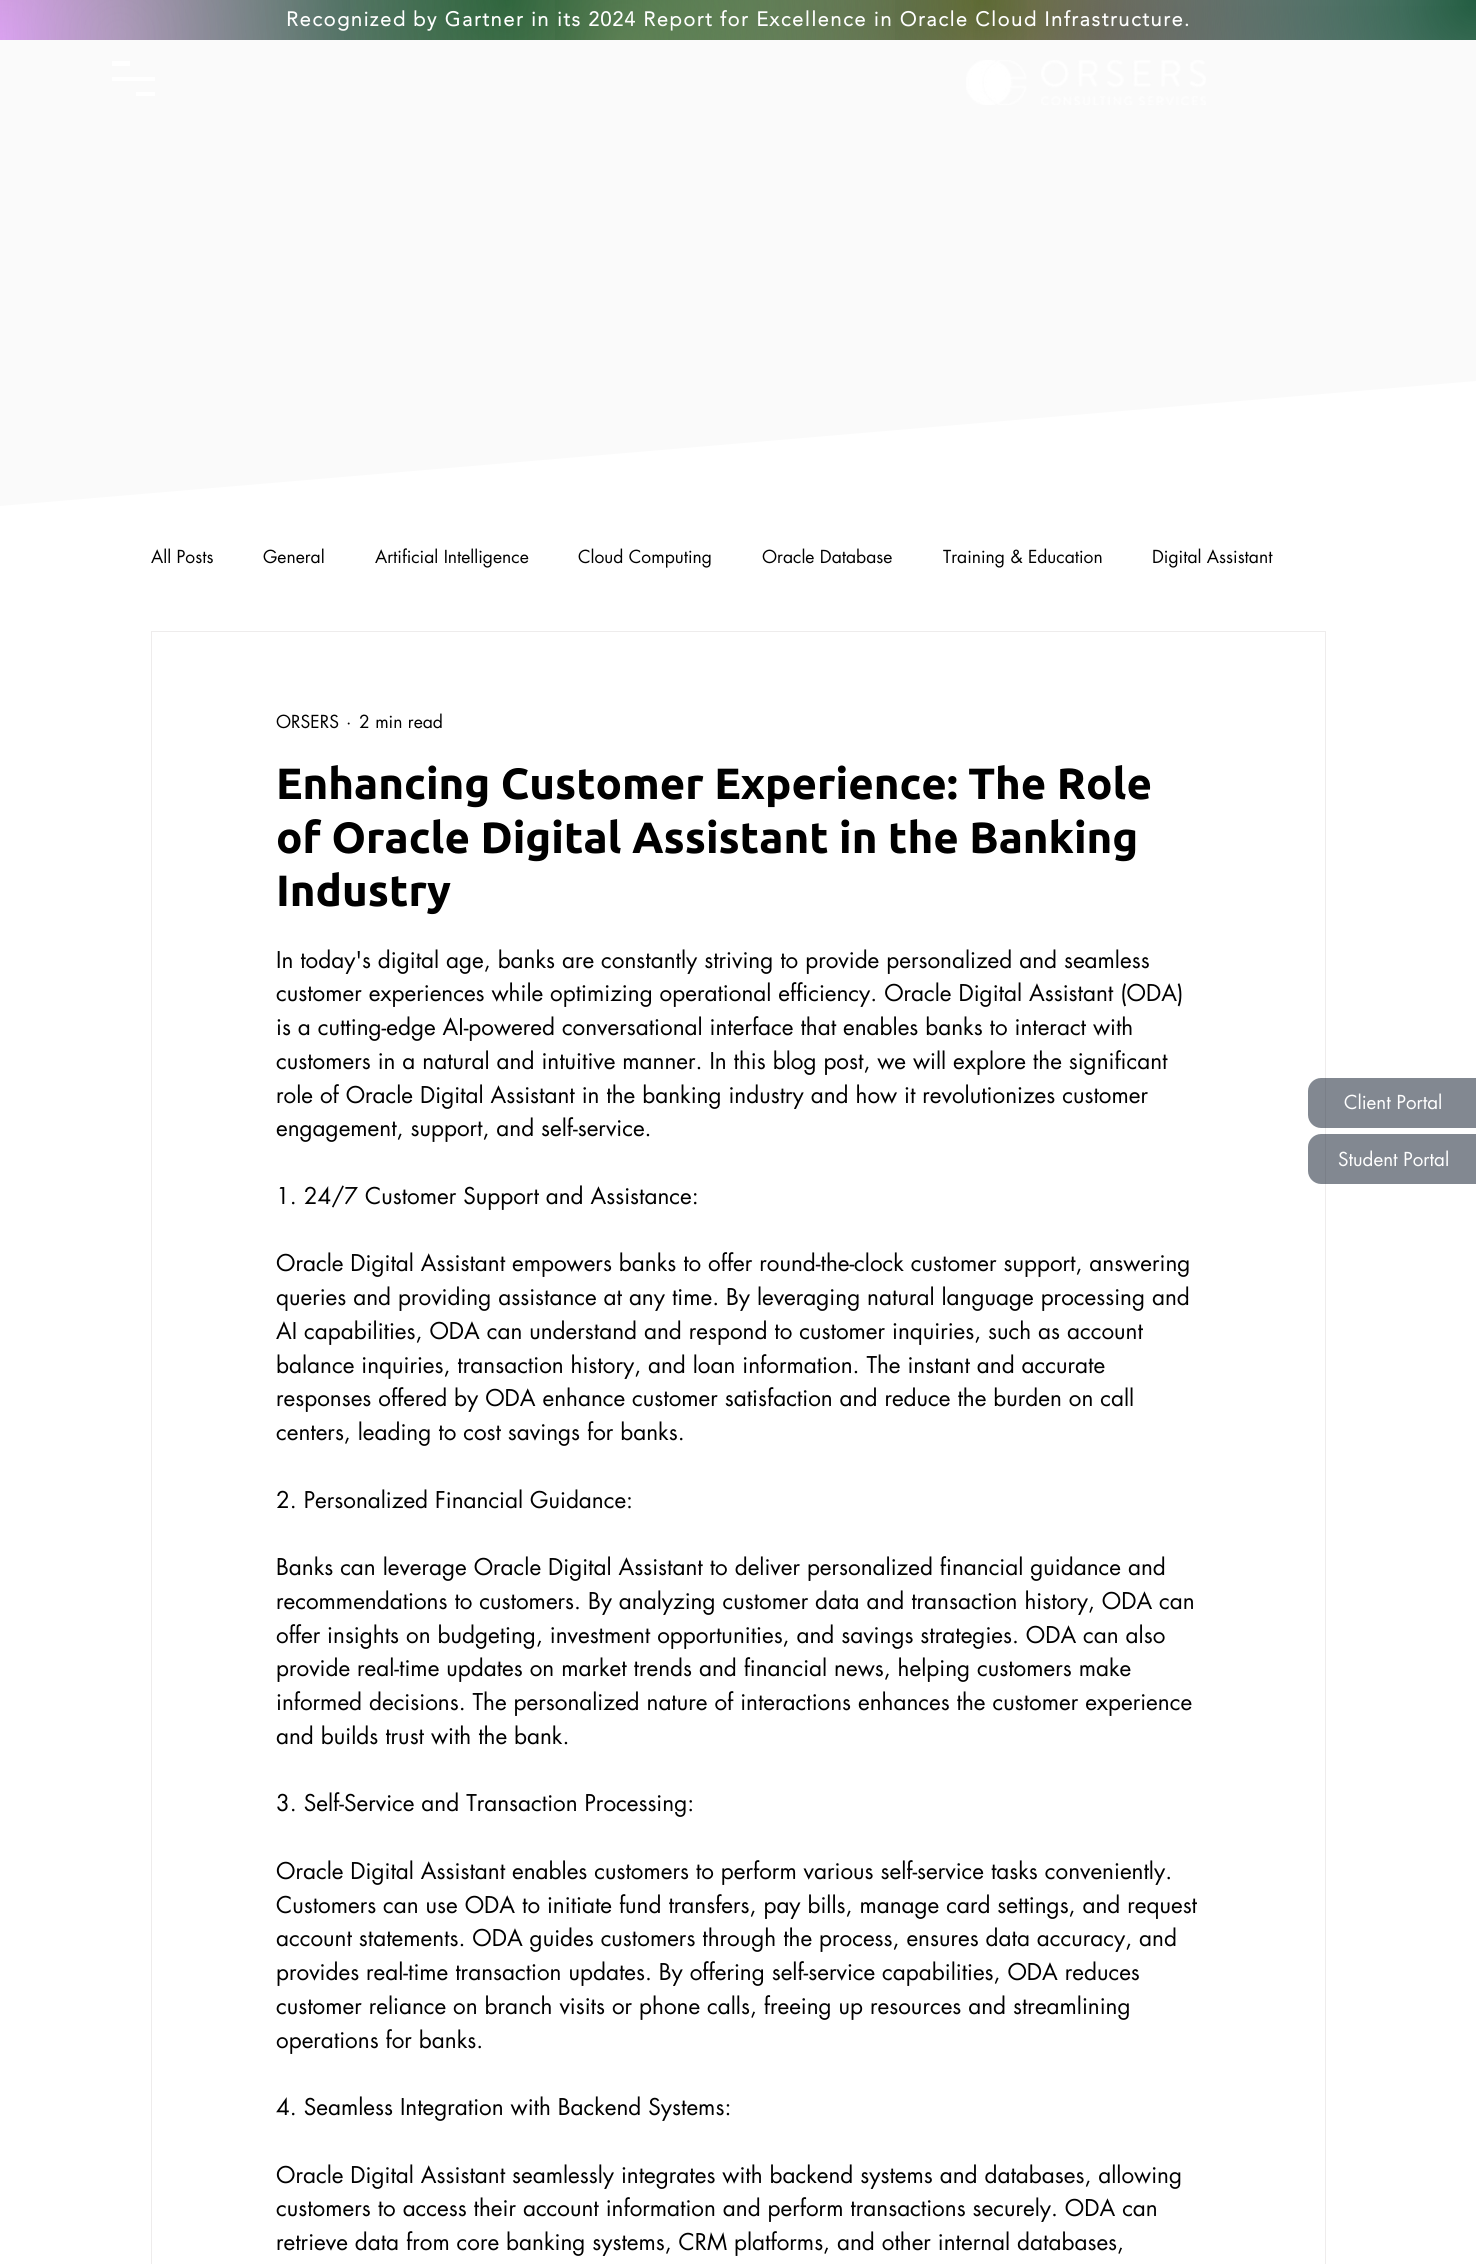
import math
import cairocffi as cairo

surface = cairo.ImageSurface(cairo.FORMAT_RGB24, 1476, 2264)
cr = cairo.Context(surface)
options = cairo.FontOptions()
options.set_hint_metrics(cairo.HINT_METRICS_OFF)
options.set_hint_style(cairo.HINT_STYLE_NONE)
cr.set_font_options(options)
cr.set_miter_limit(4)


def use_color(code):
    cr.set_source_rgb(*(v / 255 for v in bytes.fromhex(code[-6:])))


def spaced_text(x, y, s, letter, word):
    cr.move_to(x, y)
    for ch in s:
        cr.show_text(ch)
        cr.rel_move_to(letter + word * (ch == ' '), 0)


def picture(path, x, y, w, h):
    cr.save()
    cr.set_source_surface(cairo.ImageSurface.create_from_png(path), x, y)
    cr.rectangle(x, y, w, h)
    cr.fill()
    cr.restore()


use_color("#ffffff")
cr.paint()
use_color("#fafafa")
cr.rectangle(0, 6, 1476, 500)
cr.fill()
gradient = cairo.RadialGradient(722, 20, 0, 722, 20, 755)
gradient.add_color_stop_rgba(0, 0.937, 0.937, 0.957, 1)
gradient.add_color_stop_rgba(1, 0.937, 0.937, 0.957, 0)
cr.set_source(gradient)
cr.rectangle(74, 0, 1296, 40)
cr.fill()
gradient = cairo.RadialGradient(0, 0, 0, 0, 0, 1477)
gradient.add_color_stop_rgba(0, 0.302, 0.376, 0.004, 1)
gradient.add_color_stop_rgba(0.7, 0.302, 0.376, 0.004, 0)
cr.set_source(gradient)
cr.rectangle(0, 0, 1014, 40)
cr.fill()
gradient = cairo.RadialGradient(4.7, 40, 0, 4.7, 40, 1472)
gradient.add_color_stop_rgba(0, 0.859, 0.557, 0.965, 1)
gradient.add_color_stop_rgba(0.5, 0.859, 0.557, 0.965, 0)
cr.set_source(gradient)
cr.rectangle(0, 0, 714, 40)
cr.fill()
gradient = cairo.RadialGradient(1103, 34, 0, 1103, 34, 1103)
gradient.add_color_stop_rgba(0, 0.859, 0.557, 0.965, 1)
gradient.add_color_stop_rgba(0.4, 0.859, 0.557, 0.965, 0)
cr.set_source(gradient)
cr.rectangle(672, 0, 804, 40)
cr.fill()
gradient = cairo.RadialGradient(982, 0, 0, 982, 0, 982)
gradient.add_color_stop_rgba(0, 0.302, 0.376, 0.004, 0.78)
gradient.add_color_stop_rgba(0.44, 0.302, 0.376, 0.004, 0)
cr.set_source(gradient)
cr.rectangle(563, 0, 837, 40)
cr.fill()
gradient = cairo.RadialGradient(508, 0.5, 0, 508, 0.5, 969)
gradient.add_color_stop_rgba(0, 0, 0.275, 0.137, 1)
gradient.add_color_stop_rgba(0.55, 0, 0.275, 0.137, 0)
cr.set_source(gradient)
cr.rectangle(0, 0, 1027, 40)
cr.fill()
gradient = cairo.RadialGradient(1475, 0, 0, 1475, 0, 1476)
gradient.add_color_stop_rgba(0, 0, 0.275, 0.137, 0.86)
gradient.add_color_stop_rgba(0.35, 0, 0.275, 0.137, 0)
cr.set_source(gradient)
cr.rectangle(973, 0, 503, 40)
cr.fill()
gradient = cairo.RadialGradient(119, 35, 0, 119, 35, 1357)
gradient.add_color_stop_rgba(0, 0.98, 0.98, 0.98, 0.27)
gradient.add_color_stop_rgba(0.35, 0.98, 0.98, 0.98, 0)
cr.set_source(gradient)
cr.rectangle(0, 0, 555, 40)
cr.fill()
gradient = cairo.RadialGradient(622, 40, 0, 622, 40, 856)
gradient.add_color_stop_rgba(0, 0.992, 0.918, 0.616, 0.25)
gradient.add_color_stop_rgba(0.35, 0.992, 0.918, 0.616, 0)
cr.set_source(gradient)
cr.rectangle(350, 0, 545, 40)
cr.fill()
cr.select_font_face("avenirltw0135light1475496", cairo.FONT_SLANT_NORMAL, cairo.FONT_WEIGHT_BOLD)
cr.set_font_size(20)
use_color("#ffffff")
spaced_text(286, 26, "Recognized by Gartner in its 2024 Report for Excellence in Oracle Cloud Infrastructure.", 1.6, 0)
cr.rectangle(112, 61, 18, 5)
cr.fill()
cr.rectangle(136, 92, 19, 4)
cr.fill()
cr.rectangle(112, 77, 43, 4)
cr.fill()
picture("img1.png", 966, 60, 240, 45)
cr.new_path()
cr.move_to(0, 506)
cr.line_to(1476, 381)
cr.line_to(1476, 506)
cr.close_path()
cr.fill()
cr.select_font_face("futura")
cr.set_font_size(17.5)
use_color("#000000")
cr.move_to(151, 563)
cr.show_text("All Posts")
cr.move_to(263, 563)
cr.show_text("General")
cr.move_to(375, 563)
cr.show_text("Artificial Intelligence")
cr.move_to(578, 563)
cr.show_text("Cloud Computing")
cr.move_to(762, 563)
cr.show_text("Oracle Database")
cr.move_to(943, 563)
cr.show_text("Training & Education")
cr.move_to(1152, 563)
cr.show_text("Digital Assistant")
cr.rectangle(151.5, 631.5, 1174, 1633)
use_color("#eeecec")
cr.set_line_width(1)
cr.stroke()
use_color("#000000")
cr.move_to(276, 728)
cr.show_text("ORSERS")
cr.move_to(346, 728)
cr.show_text("·")
cr.move_to(359, 728)
cr.show_text("2 min read")
cr.select_font_face("Ubuntu", cairo.FONT_SLANT_NORMAL, cairo.FONT_WEIGHT_BOLD)
cr.set_font_size(43.75)
cr.move_to(276, 799)
cr.show_text("Enhancing Customer Experience: The Role")
cr.move_to(276, 853)
cr.show_text("of Oracle Digital Assistant in the Banking")
cr.move_to(276, 906)
cr.show_text("Industry")
cr.select_font_face("futura")
cr.set_font_size(22.5)
cr.move_to(276, 968)
cr.show_text("In today's digital age, banks are constantly striving to provide personalized and seamless")
cr.move_to(276, 1001)
cr.show_text("customer experiences while optimizing operational efficiency. Oracle Digital Assistant (ODA)")
cr.move_to(276, 1035)
cr.show_text("is a cutting-edge AI-powered conversational interface that enables banks to interact with")
cr.move_to(276, 1069)
cr.show_text("customers in a natural and intuitive manner. In this blog post, we will explore the significant")
cr.move_to(276, 1103)
cr.show_text("role of Oracle Digital Assistant in the banking industry and how it revolutionizes customer")
cr.move_to(276, 1136)
cr.show_text("engagement, support, and self-service.")
cr.move_to(276, 1204)
cr.show_text("1. 24/7 Customer Support and Assistance:")
cr.move_to(276, 1271)
cr.show_text("Oracle Digital Assistant empowers banks to offer round-the-clock customer support, answering")
cr.move_to(276, 1305)
cr.show_text("queries and providing assistance at any time. By leveraging natural language processing and")
cr.move_to(276, 1339)
cr.show_text("AI capabilities, ODA can understand and respond to customer inquiries, such as account")
cr.move_to(276, 1373)
cr.show_text("balance inquiries, transaction history, and loan information. The instant and accurate")
cr.move_to(276, 1406)
cr.show_text("responses offered by ODA enhance customer satisfaction and reduce the burden on call")
cr.move_to(276, 1440)
cr.show_text("centers, leading to cost savings for banks.")
cr.move_to(276, 1508)
cr.show_text("2. Personalized Financial Guidance:")
cr.move_to(276, 1575)
cr.show_text("Banks can leverage Oracle Digital Assistant to deliver personalized financial guidance and")
cr.move_to(276, 1609)
cr.show_text("recommendations to customers. By analyzing customer data and transaction history, ODA can")
cr.move_to(276, 1643)
cr.show_text("offer insights on budgeting, investment opportunities, and savings strategies. ODA can also")
cr.move_to(276, 1676)
cr.show_text("provide real-time updates on market trends and financial news, helping customers make")
cr.move_to(276, 1710)
cr.show_text("informed decisions. The personalized nature of interactions enhances the customer experience")
cr.move_to(276, 1744)
cr.show_text("and builds trust with the bank.")
cr.move_to(276, 1811)
cr.show_text("3. Self-Service and Transaction Processing:")
cr.move_to(276, 1879)
cr.show_text("Oracle Digital Assistant enables customers to perform various self-service tasks conveniently.")
cr.move_to(276, 1913)
cr.show_text("Customers can use ODA to initiate fund transfers, pay bills, manage card settings, and request")
cr.move_to(276, 1946)
cr.show_text("account statements. ODA guides customers through the process, ensures data accuracy, and")
cr.move_to(276, 1980)
cr.show_text("provides real-time transaction updates. By offering self-service capabilities, ODA reduces")
cr.move_to(276, 2014)
cr.show_text("customer reliance on branch visits or phone calls, freeing up resources and streamlining")
cr.move_to(276, 2048)
cr.show_text("operations for banks.")
cr.move_to(276, 2115)
cr.show_text("4. Seamless Integration with Backend Systems:")
cr.move_to(276, 2183)
cr.show_text("Oracle Digital Assistant seamlessly integrates with backend systems and databases, allowing")
cr.move_to(276, 2216)
cr.show_text("customers to access their account information and perform transactions securely. ODA can")
cr.move_to(276, 2250)
cr.show_text("retrieve data from core banking systems, CRM platforms, and other internal databases,")
cr.set_source_rgba(0.031, 0.078, 0.145, 0.5)
cr.new_path()
cr.move_to(1321, 1078)
cr.line_to(1476, 1078)
cr.line_to(1476, 1128)
cr.line_to(1321, 1128)
cr.curve_to(1314, 1128, 1308, 1122, 1308, 1115)
cr.line_to(1308, 1091)
cr.curve_to(1308, 1084, 1314, 1078, 1321, 1078)
cr.close_path()
cr.fill()
cr.set_font_size(18.75)
use_color("#ffffff")
cr.move_to(1344, 1109)
cr.show_text("Client Portal")
cr.set_source_rgba(0.031, 0.078, 0.145, 0.5)
cr.new_path()
cr.move_to(1321, 1134)
cr.line_to(1476, 1134)
cr.line_to(1476, 1184)
cr.line_to(1321, 1184)
cr.curve_to(1314, 1184, 1308, 1178, 1308, 1171)
cr.line_to(1308, 1147)
cr.curve_to(1308, 1140, 1314, 1134, 1321, 1134)
cr.close_path()
cr.fill()
use_color("#ffffff")
cr.move_to(1338, 1166)
cr.show_text("Student Portal")
surface.write_to_png("result.png")
